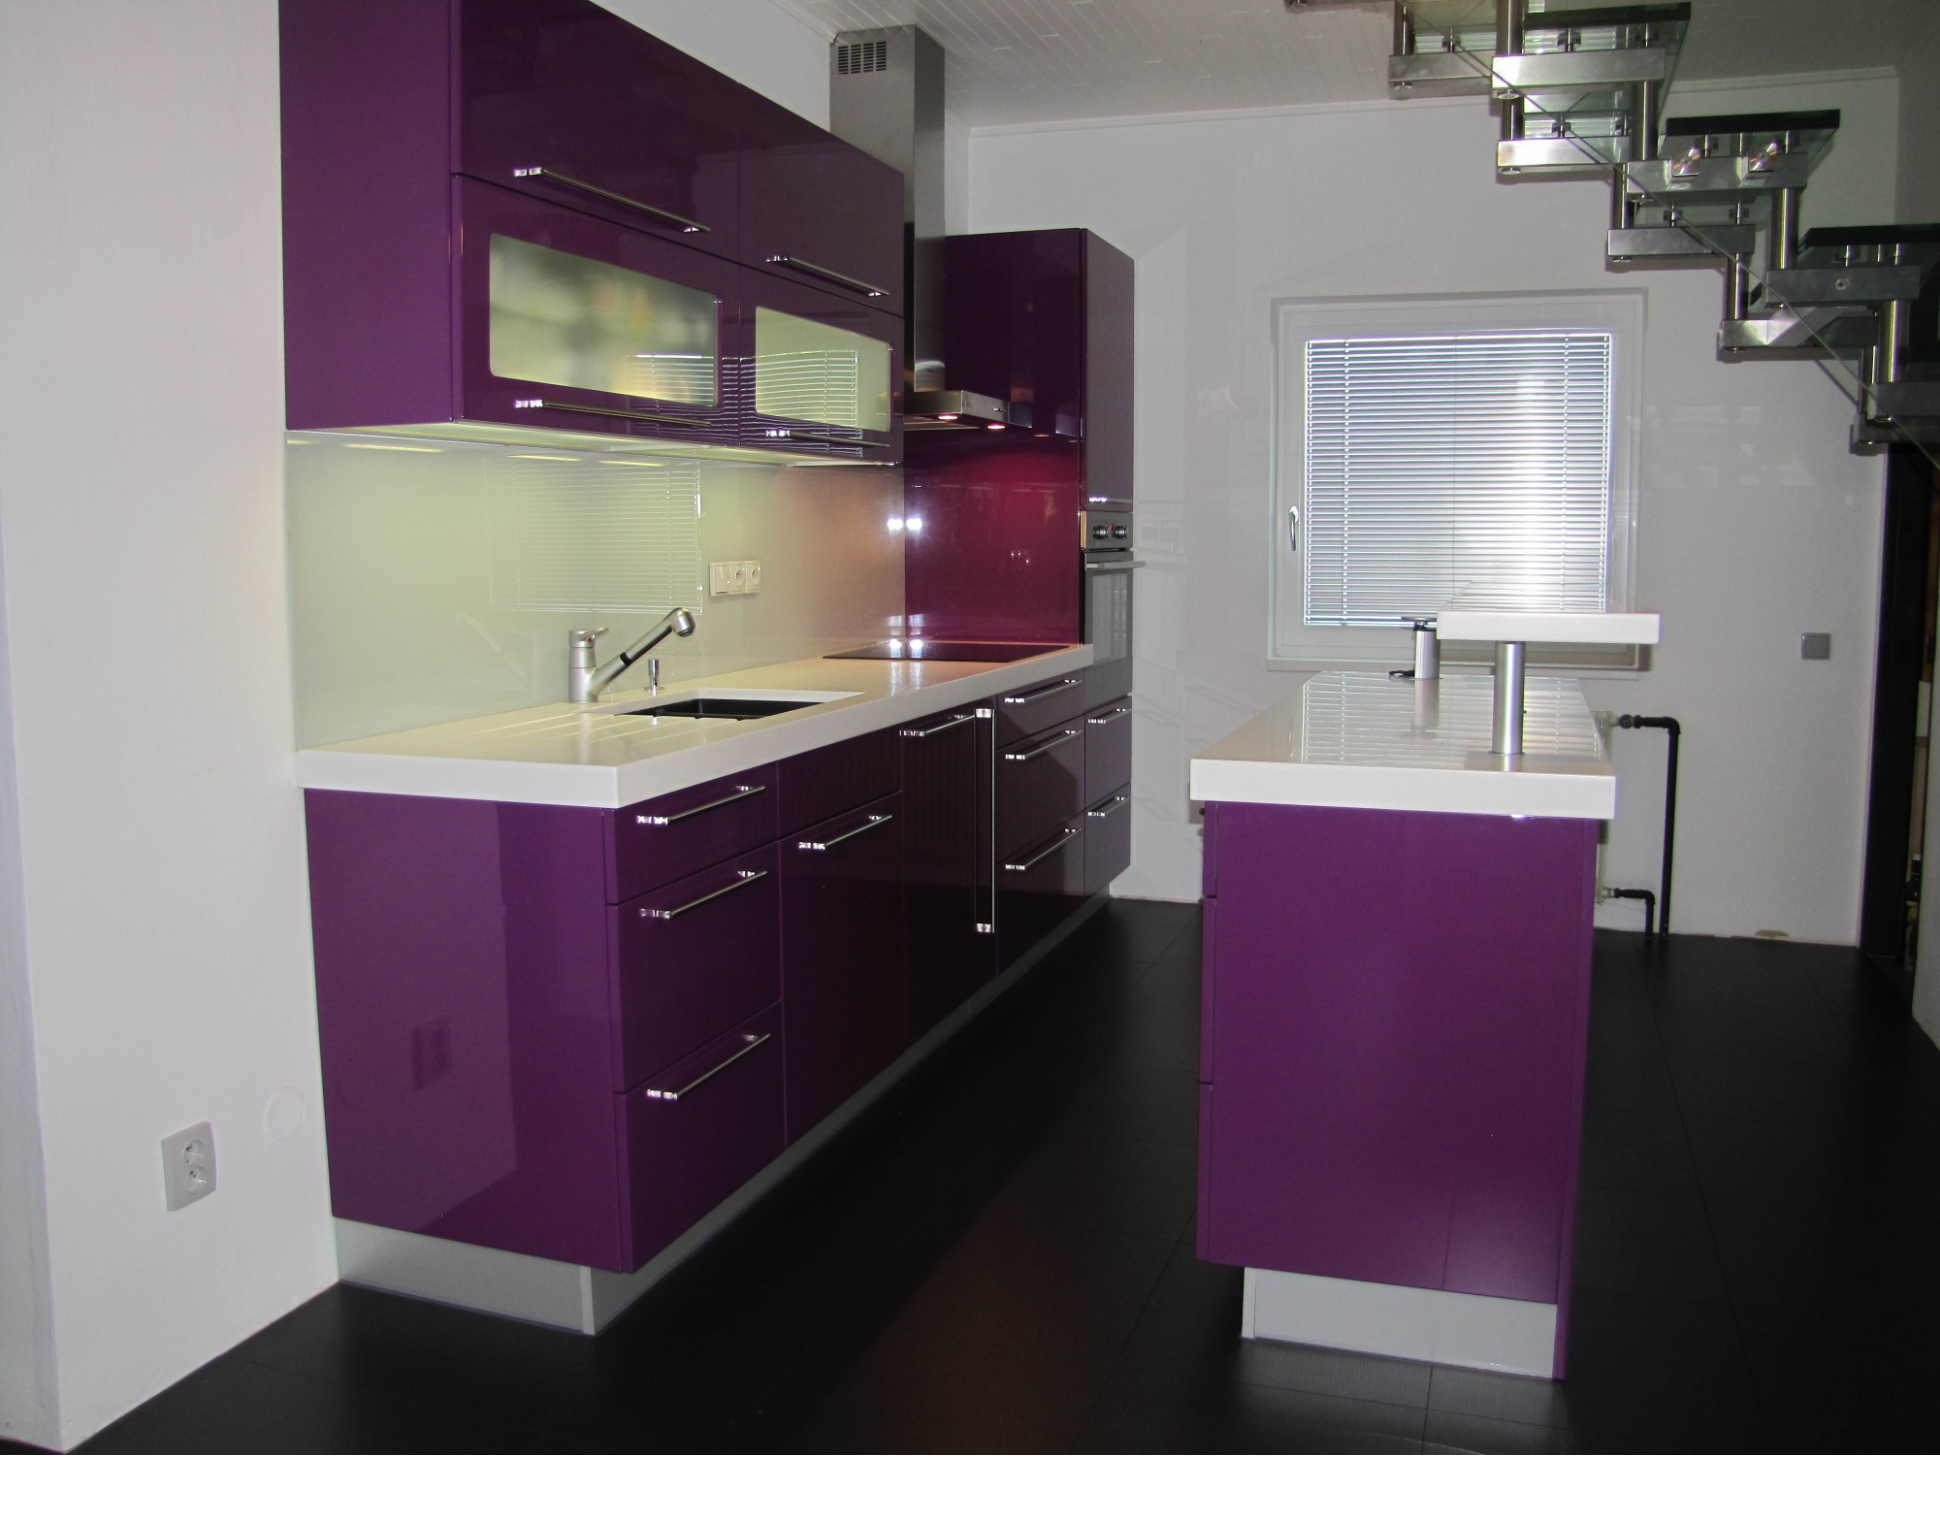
import math
import cairocffi as cairo

surface = cairo.ImageSurface(cairo.FORMAT_RGB24, 1940, 1515)
cr = cairo.Context(surface)
options = cairo.FontOptions()
options.set_hint_metrics(cairo.HINT_METRICS_OFF)
options.set_hint_style(cairo.HINT_STYLE_NONE)
cr.set_font_options(options)
cr.set_miter_limit(4)


def use_color(code):
    cr.set_source_rgb(*(v / 255 for v in bytes.fromhex(code[-6:])))


def picture(path, x, y, w, h):
    cr.save()
    cr.set_source_surface(cairo.ImageSurface.create_from_png(path), x, y)
    cr.rectangle(x, y, w, h)
    cr.fill()
    cr.restore()


use_color("#ffffff")
cr.paint()
picture("img1.png", 0, 0, 1940, 1455)
surface.write_to_png("result.png")
